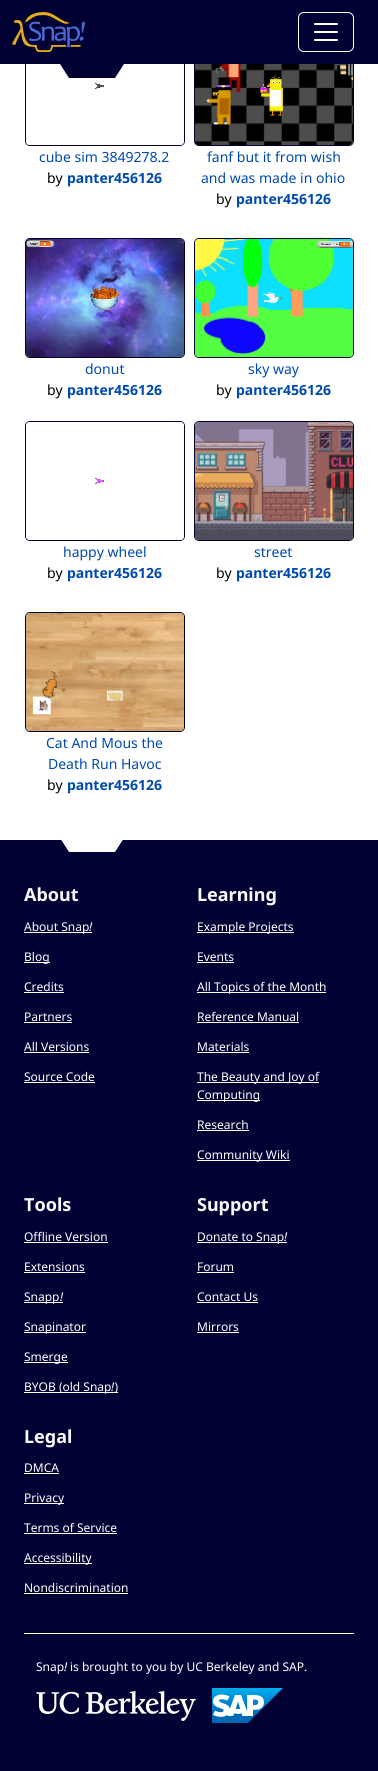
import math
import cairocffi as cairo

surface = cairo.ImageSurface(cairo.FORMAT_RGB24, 378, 1771)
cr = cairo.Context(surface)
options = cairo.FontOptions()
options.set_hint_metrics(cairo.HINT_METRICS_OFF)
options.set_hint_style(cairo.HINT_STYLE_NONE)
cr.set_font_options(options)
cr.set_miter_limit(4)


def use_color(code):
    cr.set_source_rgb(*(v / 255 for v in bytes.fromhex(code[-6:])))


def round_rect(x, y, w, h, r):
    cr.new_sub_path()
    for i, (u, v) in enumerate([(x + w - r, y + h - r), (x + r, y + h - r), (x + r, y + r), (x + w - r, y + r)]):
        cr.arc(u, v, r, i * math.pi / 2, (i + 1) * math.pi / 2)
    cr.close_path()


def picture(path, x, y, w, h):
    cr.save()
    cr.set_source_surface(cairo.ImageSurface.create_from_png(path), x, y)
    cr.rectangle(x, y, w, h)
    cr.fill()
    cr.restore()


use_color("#ffffff")
cr.paint()
round_rect(25.5, 26.5, 159, 119, 4.5)
use_color("#010133")
cr.set_line_width(1)
cr.stroke()
round_rect(194.5, 26.5, 159, 119, 4.5)
cr.stroke()
cr.rectangle(0, 0, 378, 64)
cr.fill()
picture("img1.png", 12, 12, 73, 40)
round_rect(298.5, 12.5, 55, 39, 5.5)
use_color("#ffffff")
cr.stroke()
picture("img2.png", 314, 23, 24, 18)
picture("img3.png", 26, 64, 158, 81)
use_color("#010133")
cr.new_path()
cr.move_to(60, 64)
cr.line_to(124, 64)
cr.line_to(115, 78)
cr.line_to(69, 78)
cr.close_path()
cr.fill()
cr.select_font_face("Noto Sans")
cr.set_font_size(14)
use_color("#004aae")
cr.move_to(39, 162)
cr.show_text("cube sim 3849278.2")
use_color("#000000")
cr.move_to(47, 183)
cr.show_text("by")
cr.select_font_face("Noto Sans", cairo.FONT_SLANT_NORMAL, cairo.FONT_WEIGHT_BOLD)
use_color("#004aae")
cr.move_to(67, 183)
cr.show_text("panter456126")
picture("img4.png", 195, 64, 158, 81)
cr.select_font_face("Noto Sans")
cr.move_to(207, 162)
cr.show_text("fanf but it from wish")
cr.move_to(201, 183)
cr.show_text("and was made in ohio")
use_color("#000000")
cr.move_to(216, 204)
cr.show_text("by")
cr.select_font_face("Noto Sans", cairo.FONT_SLANT_NORMAL, cairo.FONT_WEIGHT_BOLD)
use_color("#004aae")
cr.move_to(236, 204)
cr.show_text("panter456126")
round_rect(25.5, 238.5, 159, 119, 4.5)
use_color("#010133")
cr.stroke()
picture("img5.png", 26, 239, 158, 118)
cr.select_font_face("Noto Sans")
use_color("#004aae")
cr.move_to(85, 374)
cr.show_text("donut")
use_color("#000000")
cr.move_to(47, 395)
cr.show_text("by")
cr.select_font_face("Noto Sans", cairo.FONT_SLANT_NORMAL, cairo.FONT_WEIGHT_BOLD)
use_color("#004aae")
cr.move_to(67, 395)
cr.show_text("panter456126")
round_rect(194.5, 238.5, 159, 119, 4.5)
use_color("#010133")
cr.stroke()
picture("img6.png", 195, 239, 158, 118)
cr.select_font_face("Noto Sans")
use_color("#004aae")
cr.move_to(248, 374)
cr.show_text("sky way")
use_color("#000000")
cr.move_to(216, 395)
cr.show_text("by")
cr.select_font_face("Noto Sans", cairo.FONT_SLANT_NORMAL, cairo.FONT_WEIGHT_BOLD)
use_color("#004aae")
cr.move_to(236, 395)
cr.show_text("panter456126")
round_rect(25.5, 421.5, 159, 119, 4.5)
use_color("#010133")
cr.stroke()
picture("img7.png", 26, 422, 158, 118)
cr.select_font_face("Noto Sans")
use_color("#004aae")
cr.move_to(63, 557)
cr.show_text("happy wheel")
use_color("#000000")
cr.move_to(47, 578)
cr.show_text("by")
cr.select_font_face("Noto Sans", cairo.FONT_SLANT_NORMAL, cairo.FONT_WEIGHT_BOLD)
use_color("#004aae")
cr.move_to(67, 578)
cr.show_text("panter456126")
round_rect(194.5, 421.5, 159, 119, 4.5)
use_color("#010133")
cr.stroke()
picture("img8.png", 195, 422, 158, 118)
cr.select_font_face("Noto Sans")
use_color("#004aae")
cr.move_to(254, 557)
cr.show_text("street")
use_color("#000000")
cr.move_to(216, 578)
cr.show_text("by")
cr.select_font_face("Noto Sans", cairo.FONT_SLANT_NORMAL, cairo.FONT_WEIGHT_BOLD)
use_color("#004aae")
cr.move_to(236, 578)
cr.show_text("panter456126")
round_rect(25.5, 612.5, 159, 119, 4.5)
use_color("#010133")
cr.stroke()
picture("img9.png", 26, 613, 158, 118)
cr.select_font_face("Noto Sans")
use_color("#004aae")
cr.move_to(46, 748)
cr.show_text("Cat And Mous the")
cr.move_to(48, 769)
cr.show_text("Death Run Havoc")
use_color("#000000")
cr.move_to(47, 790)
cr.show_text("by")
cr.select_font_face("Noto Sans", cairo.FONT_SLANT_NORMAL, cairo.FONT_WEIGHT_BOLD)
use_color("#004aae")
cr.move_to(67, 790)
cr.show_text("panter456126")
use_color("#010133")
cr.rectangle(0, 840, 378, 931)
cr.fill()
use_color("#ffffff")
cr.new_path()
cr.move_to(60, 838)
cr.line_to(124, 838)
cr.line_to(115, 852)
cr.line_to(69, 852)
cr.close_path()
cr.fill()
cr.set_font_size(18)
use_color("#f8f9fa")
cr.move_to(24, 901)
cr.show_text("About")
use_color("#ffffff")
cr.rectangle(24, 932, 68, 1)
cr.fill()
cr.select_font_face("Noto Sans")
cr.set_font_size(12)
cr.move_to(24, 931)
cr.show_text("About Snap")
cr.select_font_face("Noto Sans", cairo.FONT_SLANT_ITALIC)
cr.move_to(89, 931)
cr.show_text("!")
cr.rectangle(24, 962, 26, 1)
cr.fill()
cr.select_font_face("Noto Sans")
cr.move_to(24, 961)
cr.show_text("Blog")
cr.move_to(24, 991)
cr.show_text("Credits")
cr.rectangle(24, 992, 40, 1)
cr.fill()
cr.move_to(24, 1021)
cr.show_text("Partners")
cr.rectangle(24, 1022, 48, 1)
cr.fill()
cr.move_to(24, 1051)
cr.show_text("All Versions")
cr.rectangle(24, 1052, 65, 1)
cr.fill()
cr.move_to(24, 1081)
cr.show_text("Source Code")
cr.rectangle(24, 1082, 71, 1)
cr.fill()
cr.select_font_face("Noto Sans", cairo.FONT_SLANT_NORMAL, cairo.FONT_WEIGHT_BOLD)
cr.set_font_size(18)
use_color("#f8f9fa")
cr.move_to(197, 901)
cr.show_text("Learning")
use_color("#ffffff")
cr.rectangle(197, 932, 97, 1)
cr.fill()
cr.select_font_face("Noto Sans")
cr.set_font_size(12)
cr.move_to(197, 931)
cr.show_text("Example Projects")
cr.move_to(197, 961)
cr.show_text("Events")
cr.rectangle(197, 962, 37, 1)
cr.fill()
cr.rectangle(197, 992, 129, 1)
cr.fill()
cr.move_to(197, 991)
cr.show_text("All Topics of the Month")
cr.move_to(197, 1021)
cr.show_text("Reference Manual")
cr.rectangle(197, 1022, 102, 1)
cr.fill()
cr.move_to(197, 1051)
cr.show_text("Materials")
cr.rectangle(197, 1052, 52, 1)
cr.fill()
cr.rectangle(197, 1082, 122, 1)
cr.fill()
cr.move_to(197, 1081)
cr.show_text("The Beauty and Joy of")
cr.rectangle(197, 1100, 63, 1)
cr.fill()
cr.move_to(197, 1099)
cr.show_text("Computing")
cr.move_to(197, 1129)
cr.show_text("Research")
cr.rectangle(197, 1130, 52, 1)
cr.fill()
cr.rectangle(197, 1160, 93, 1)
cr.fill()
cr.move_to(197, 1159)
cr.show_text("Community Wiki")
cr.select_font_face("Noto Sans", cairo.FONT_SLANT_NORMAL, cairo.FONT_WEIGHT_BOLD)
cr.set_font_size(18)
use_color("#f8f9fa")
cr.move_to(24, 1211)
cr.show_text("Tools")
cr.select_font_face("Noto Sans")
cr.set_font_size(12)
use_color("#ffffff")
cr.move_to(24, 1241)
cr.show_text("Offline Version")
cr.rectangle(24, 1242, 84, 1)
cr.fill()
cr.move_to(24, 1271)
cr.show_text("Extensions")
cr.rectangle(24, 1272, 61, 1)
cr.fill()
cr.rectangle(24, 1302, 39, 1)
cr.fill()
cr.move_to(24, 1301)
cr.show_text("Snapp")
cr.select_font_face("Noto Sans", cairo.FONT_SLANT_ITALIC)
cr.move_to(60, 1301)
cr.show_text("!")
cr.rectangle(24, 1332, 62, 1)
cr.fill()
cr.select_font_face("Noto Sans")
cr.move_to(24, 1331)
cr.show_text("Snapinator")
cr.rectangle(24, 1362, 44, 1)
cr.fill()
cr.move_to(24, 1361)
cr.show_text("Smerge")
cr.rectangle(24, 1392, 94, 1)
cr.fill()
cr.move_to(24, 1391)
cr.show_text("BYOB (old Snap )")
cr.select_font_face("Noto Sans", cairo.FONT_SLANT_ITALIC)
cr.move_to(111, 1391)
cr.show_text("!")
cr.select_font_face("Noto Sans", cairo.FONT_SLANT_NORMAL, cairo.FONT_WEIGHT_BOLD)
cr.set_font_size(18)
use_color("#f8f9fa")
cr.move_to(197, 1211)
cr.show_text("Support")
use_color("#ffffff")
cr.rectangle(197, 1242, 90, 1)
cr.fill()
cr.select_font_face("Noto Sans")
cr.set_font_size(12)
cr.move_to(197, 1241)
cr.show_text("Donate to Snap")
cr.select_font_face("Noto Sans", cairo.FONT_SLANT_ITALIC)
cr.move_to(284, 1241)
cr.show_text("!")
cr.select_font_face("Noto Sans")
cr.move_to(197, 1271)
cr.show_text("Forum")
cr.rectangle(197, 1272, 37, 1)
cr.fill()
cr.move_to(197, 1301)
cr.show_text("Contact Us")
cr.rectangle(197, 1302, 61, 1)
cr.fill()
cr.move_to(197, 1331)
cr.show_text("Mirrors")
cr.rectangle(197, 1332, 42, 1)
cr.fill()
cr.select_font_face("Noto Sans", cairo.FONT_SLANT_NORMAL, cairo.FONT_WEIGHT_BOLD)
cr.set_font_size(18)
use_color("#f8f9fa")
cr.move_to(24, 1443)
cr.show_text("Legal")
cr.select_font_face("Noto Sans")
cr.set_font_size(12)
use_color("#ffffff")
cr.move_to(24, 1472)
cr.show_text("DMCA")
cr.rectangle(24, 1473, 35, 1)
cr.fill()
cr.rectangle(24, 1503, 40, 1)
cr.fill()
cr.move_to(24, 1502)
cr.show_text("Privacy")
cr.move_to(24, 1532)
cr.show_text("Terms of Service")
cr.rectangle(24, 1533, 93, 1)
cr.fill()
cr.rectangle(24, 1563, 68, 1)
cr.fill()
cr.move_to(24, 1562)
cr.show_text("Accessibility")
cr.move_to(24, 1592)
cr.show_text("Nondiscrimination")
cr.rectangle(24, 1593, 104, 1)
cr.fill()
cr.rectangle(24, 1633, 330, 1)
cr.fill()
cr.move_to(36, 1671)
cr.show_text("Snap")
cr.select_font_face("Noto Sans", cairo.FONT_SLANT_ITALIC)
cr.move_to(64, 1671)
cr.show_text("!")
cr.select_font_face("Noto Sans")
cr.move_to(70, 1671)
cr.show_text("is brought to you by UC Berkeley and SAP.")
picture("img10.png", 36, 1691, 160, 30)
picture("img11.png", 212, 1688, 71, 35)
surface.write_to_png("result.png")
